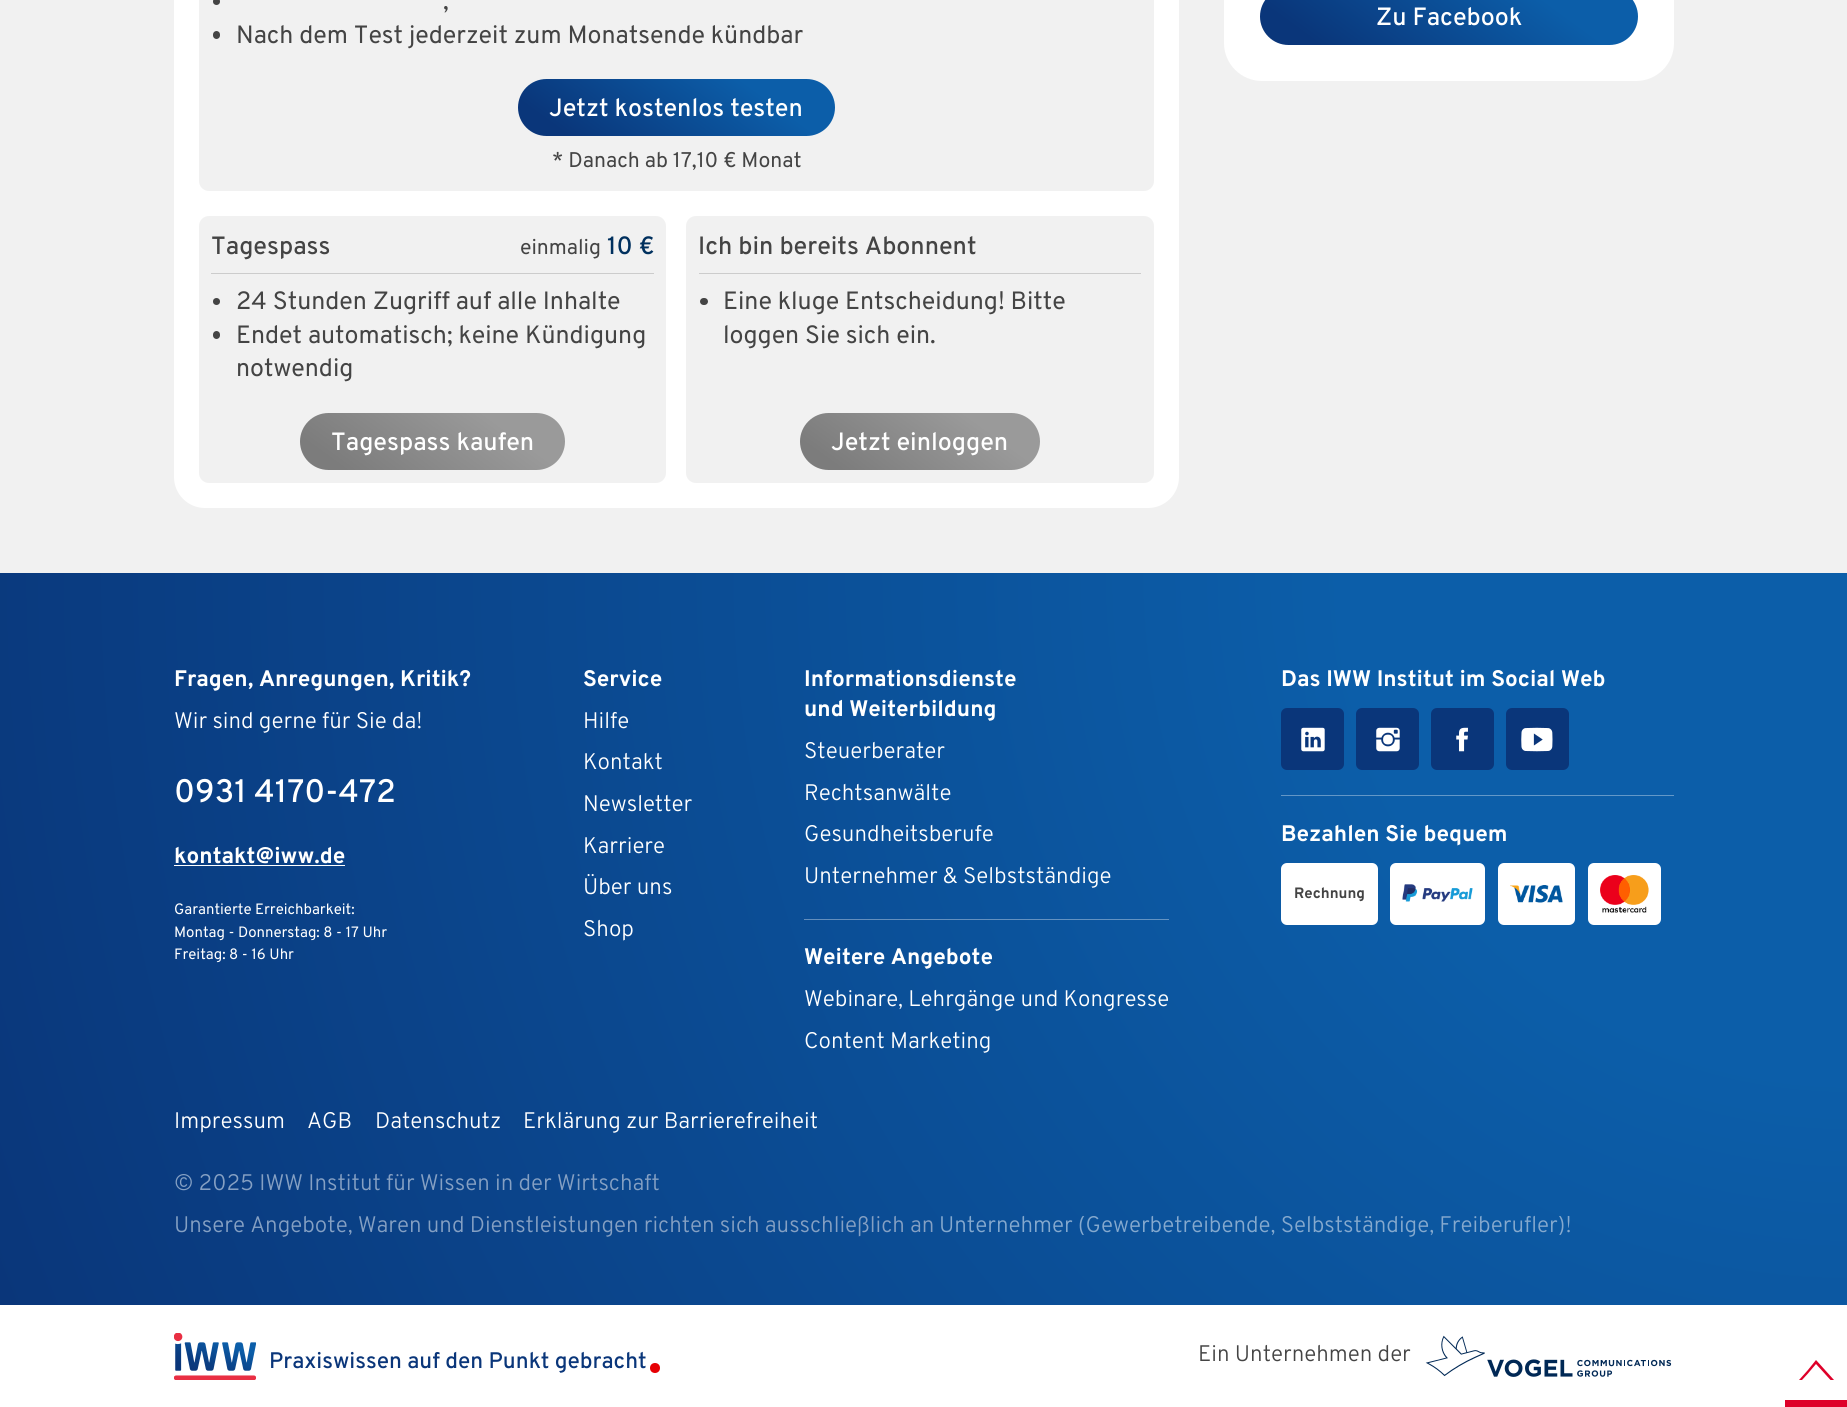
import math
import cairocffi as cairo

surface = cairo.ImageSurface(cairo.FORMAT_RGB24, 1847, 1407)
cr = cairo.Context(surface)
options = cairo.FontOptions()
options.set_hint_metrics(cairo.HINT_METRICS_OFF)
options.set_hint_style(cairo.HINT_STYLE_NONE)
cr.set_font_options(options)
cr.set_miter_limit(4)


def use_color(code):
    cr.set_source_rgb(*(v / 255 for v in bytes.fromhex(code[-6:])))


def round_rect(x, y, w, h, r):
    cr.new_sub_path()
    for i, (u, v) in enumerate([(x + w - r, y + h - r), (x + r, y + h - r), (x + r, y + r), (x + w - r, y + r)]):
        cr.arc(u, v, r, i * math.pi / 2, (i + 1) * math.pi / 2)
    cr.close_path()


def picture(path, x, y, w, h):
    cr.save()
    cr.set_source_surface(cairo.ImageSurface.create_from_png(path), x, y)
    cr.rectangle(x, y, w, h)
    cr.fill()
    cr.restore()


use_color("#ffffff")
cr.paint()
use_color("#f1f1f1")
cr.rectangle(0, 0, 1847, 573)
cr.fill()
use_color("#ffffff")
round_rect(174, -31, 1005, 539, 31)
cr.fill()
use_color("#f1f1f1")
round_rect(199, -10, 955, 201, 10)
cr.fill()
use_color("#444444")
cr.arc(216.5, 1.5, 3.5, 0, 2 * math.pi)
cr.fill()
cr.select_font_face("Overpass")
cr.set_font_size(25)
cr.move_to(443, 9)
cr.show_text(",")
round_rect(213, 31, 7, 8, 3.5)
cr.fill()
cr.move_to(236, 43)
cr.show_text("Nach dem Test jederzeit zum Monatsende kündbar")
gradient = cairo.LinearGradient(745, 13, 608, 202)
gradient.add_color_stop_rgba(0.24, 0.047, 0.369, 0.663, 1)
gradient.add_color_stop_rgba(0.87, 0.039, 0.212, 0.478, 1)
cr.set_source(gradient)
round_rect(518, 79, 317, 57, 28.5)
cr.fill()
cr.select_font_face("Overpass Medium")
use_color("#ffffff")
cr.move_to(549, 116)
cr.show_text("Jetzt kostenlos testen")
cr.select_font_face("Overpass")
cr.set_font_size(21.25)
use_color("#444444")
cr.move_to(552, 167)
cr.show_text("* Danach ab 17,10 € Monat")
use_color("#f1f1f1")
round_rect(199, 216, 467, 267, 10)
cr.fill()
use_color("#cccccc")
cr.rectangle(211, 273, 443, 1)
cr.fill()
cr.select_font_face("Overpass Medium")
cr.set_font_size(25)
use_color("#444444")
cr.move_to(211, 254)
cr.show_text("Tagespass")
cr.select_font_face("Overpass")
cr.set_font_size(21.25)
cr.move_to(520, 254)
cr.show_text("einmalig")
cr.select_font_face("Overpass Medium")
cr.set_font_size(25)
use_color("#00305e")
cr.move_to(607, 254)
cr.show_text("10 €")
use_color("#444444")
cr.new_path()
cr.arc(216.5, 301.5, 3.5, 0, 2 * math.pi)
cr.fill()
cr.select_font_face("Overpass")
cr.move_to(236, 309)
cr.show_text("24 Stunden Zugriff auf alle Inhalte")
round_rect(213, 331, 7, 8, 3.5)
cr.fill()
cr.move_to(236, 343)
cr.show_text("Endet automatisch; keine Kündigung")
cr.move_to(236, 376)
cr.show_text("notwendig")
gradient = cairo.LinearGradient(492, 359, 373, 523)
gradient.add_color_stop_rgba(0.24, 0.604, 0.604, 0.604, 1)
gradient.add_color_stop_rgba(0.87, 0.486, 0.486, 0.486, 1)
cr.set_source(gradient)
round_rect(300, 413, 265, 57, 28.5)
cr.fill()
cr.select_font_face("Overpass Medium")
use_color("#ffffff")
cr.move_to(331, 450)
cr.show_text("Tagespass kaufen")
use_color("#f1f1f1")
round_rect(686, 216, 468, 267, 10)
cr.fill()
use_color("#cccccc")
cr.rectangle(699, 273, 442, 1)
cr.fill()
use_color("#444444")
cr.move_to(698, 254)
cr.show_text("Ich bin bereits Abonnent")
round_rect(700, 298, 8, 7, 3.5)
cr.fill()
cr.select_font_face("Overpass")
cr.move_to(723, 309)
cr.show_text("Eine kluge Entscheidung! Bitte")
cr.move_to(723, 343)
cr.show_text("loggen Sie sich ein.")
gradient = cairo.LinearGradient(975, 365, 865, 517)
gradient.add_color_stop_rgba(0.24, 0.604, 0.604, 0.604, 1)
gradient.add_color_stop_rgba(0.87, 0.486, 0.486, 0.486, 1)
cr.set_source(gradient)
round_rect(800, 413, 240, 57, 28.5)
cr.fill()
cr.select_font_face("Overpass Medium")
use_color("#ffffff")
cr.move_to(831, 450)
cr.show_text("Jetzt einloggen")
round_rect(1224, -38, 450, 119, 38)
cr.fill()
gradient = cairo.LinearGradient(1528, -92, 1370, 125)
gradient.add_color_stop_rgba(0.24, 0.047, 0.369, 0.663, 1)
gradient.add_color_stop_rgba(0.87, 0.039, 0.212, 0.478, 1)
cr.set_source(gradient)
round_rect(1260, -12, 378, 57, 28.5)
cr.fill()
use_color("#ffffff")
cr.move_to(1376, 25)
cr.show_text("Zu Facebook")
gradient = cairo.RadialGradient(1848, 573, 0, 1848, 573, 1987)
gradient.add_color_stop_rgba(0, 0.047, 0.369, 0.663, 1)
gradient.add_color_stop_rgba(0.25, 0.047, 0.369, 0.663, 1)
gradient.add_color_stop_rgba(1, 0.039, 0.212, 0.478, 1)
cr.set_source(gradient)
cr.rectangle(0, 573, 1847, 732)
cr.fill()
gradient = cairo.RadialGradient(1848, 573, 0, 1848, 573, 1987)
gradient.add_color_stop_rgba(0, 0.388, 0.596, 0.784, 1)
gradient.add_color_stop_rgba(0.25, 0.388, 0.596, 0.784, 1)
gradient.add_color_stop_rgba(1, 0.384, 0.494, 0.667, 1)
cr.set_source(gradient)
cr.rectangle(1281, 795, 393, 1)
cr.fill()
cr.rectangle(804, 919, 365, 1)
cr.fill()
cr.select_font_face("Overpass", cairo.FONT_SLANT_NORMAL, cairo.FONT_WEIGHT_BOLD)
cr.set_font_size(22.5)
use_color("#ffffff")
cr.move_to(174, 686)
cr.show_text("Fragen, Anregungen, Kritik?")
cr.select_font_face("Overpass Light")
cr.move_to(174, 728)
cr.show_text("Wir sind gerne für Sie da!")
cr.select_font_face("Overpass Medium")
cr.set_font_size(32.5)
cr.move_to(174, 802)
cr.show_text("0931 4170-472")
cr.select_font_face("Overpass", cairo.FONT_SLANT_NORMAL, cairo.FONT_WEIGHT_BOLD)
cr.set_font_size(22.5)
cr.move_to(174, 863)
cr.show_text("kontakt@iww.de")
cr.rectangle(174, 865, 171, 1)
cr.fill()
cr.select_font_face("Overpass")
cr.set_font_size(15)
cr.move_to(174, 914)
cr.show_text("Garantierte Erreichbarkeit:")
cr.move_to(174, 937)
cr.show_text("Montag - Donnerstag: 8 - 17 Uhr")
cr.move_to(174, 959)
cr.show_text("Freitag: 8 - 16 Uhr")
cr.select_font_face("Overpass", cairo.FONT_SLANT_NORMAL, cairo.FONT_WEIGHT_BOLD)
cr.set_font_size(22.5)
cr.move_to(583, 686)
cr.show_text("Service")
cr.select_font_face("Overpass Light")
cr.move_to(583, 728)
cr.show_text("Hilfe")
cr.move_to(583, 769)
cr.show_text("Kontakt")
cr.move_to(583, 811)
cr.show_text("Newsletter")
cr.move_to(583, 853)
cr.show_text("Karriere")
cr.move_to(583, 894)
cr.show_text("Über uns")
cr.move_to(583, 936)
cr.show_text("Shop")
cr.select_font_face("Overpass", cairo.FONT_SLANT_NORMAL, cairo.FONT_WEIGHT_BOLD)
cr.move_to(804, 686)
cr.show_text("Informationsdienste")
cr.move_to(804, 716)
cr.show_text("und Weiterbildung")
cr.select_font_face("Overpass Light")
cr.move_to(804, 758)
cr.show_text("Steuerberater")
cr.move_to(804, 800)
cr.show_text("Rechtsanwälte")
cr.move_to(804, 841)
cr.show_text("Gesundheitsberufe")
cr.move_to(804, 883)
cr.show_text("Unternehmer & Selbstständige")
cr.select_font_face("Overpass", cairo.FONT_SLANT_NORMAL, cairo.FONT_WEIGHT_BOLD)
cr.move_to(804, 964)
cr.show_text("Weitere Angebote")
cr.select_font_face("Overpass Light")
cr.move_to(804, 1006)
cr.show_text("Webinare, Lehrgänge und Kongresse")
cr.move_to(804, 1048)
cr.show_text("Content Marketing")
cr.select_font_face("Overpass", cairo.FONT_SLANT_NORMAL, cairo.FONT_WEIGHT_BOLD)
cr.move_to(1281, 686)
cr.show_text("Das IWW Institut im Social Web")
use_color("#0a367a")
round_rect(1281, 708, 63, 62, 6)
cr.fill()
picture("img1.png", 1301, 727, 24, 25)
round_rect(1356, 708, 63, 62, 6)
cr.fill()
picture("img2.png", 1376, 727, 24, 25)
round_rect(1431, 708, 63, 62, 6)
cr.fill()
picture("img3.png", 1456, 727, 12, 25)
round_rect(1506, 708, 63, 62, 6)
cr.fill()
picture("img4.png", 1521, 727, 32, 25)
use_color("#ffffff")
cr.move_to(1281, 841)
cr.show_text("Bezahlen Sie bequem")
round_rect(1281, 863, 97, 62, 6)
cr.fill()
cr.set_font_size(15)
use_color("#444444")
cr.move_to(1294, 898)
cr.show_text("Rechnung")
use_color("#ffffff")
round_rect(1390, 863, 95, 62, 6)
cr.fill()
picture("img5.png", 1402, 884, 71, 18)
round_rect(1498, 863, 77, 62, 6)
cr.fill()
picture("img6.png", 1510, 885, 53, 18)
round_rect(1588, 863, 73, 62, 6)
cr.fill()
picture("img7.png", 1600, 875, 49, 38)
cr.select_font_face("Overpass Light")
cr.set_font_size(22.5)
cr.move_to(174, 1128)
cr.show_text("Impressum")
cr.move_to(307, 1128)
cr.show_text("AGB")
cr.move_to(375, 1128)
cr.show_text("Datenschutz")
cr.move_to(523, 1128)
cr.show_text("Erklärung zur Barrierefreiheit")
use_color("#85a0c3")
cr.move_to(174, 1190)
cr.show_text("© 2025 IWW Institut für Wissen in der Wirtschaft")
cr.move_to(174, 1232)
cr.show_text("Unsere Angebote, Waren und Dienstleistungen richten sich ausschließlich an")
use_color("#85a9ce")
cr.move_to(939, 1232)
cr.show_text("Unternehmer (Gewerbetreibende, Selbstständige, Freiberufler)!")
picture("img8.png", 174, 1333, 82, 47)
cr.select_font_face("Overpass Medium")
use_color("#0a367a")
cr.move_to(269, 1368)
cr.show_text("Praxiswissen auf den Punkt gebracht")
use_color("#e60004")
cr.new_path()
cr.arc(655, 1368, 5, 0, 2 * math.pi)
cr.fill()
cr.select_font_face("Overpass Light")
use_color("#444444")
cr.move_to(1198, 1361)
cr.show_text("Ein Unternehmen der")
picture("img9.png", 1425, 1335, 247, 42)
use_color("#de0029")
cr.rectangle(1785, 1400, 62, 7)
cr.fill()
cr.new_path()
cr.move_to(1807.5, 1374)
cr.line_to(1816, 1364)
cr.line_to(1830.5, 1380)
cr.line_to(1834, 1380)
cr.line_to(1816, 1360)
cr.line_to(1807.5, 1370.5)
cr.line_to(1799, 1380)
cr.line_to(1802, 1380)
cr.close_path()
cr.fill()
surface.write_to_png("result.png")
